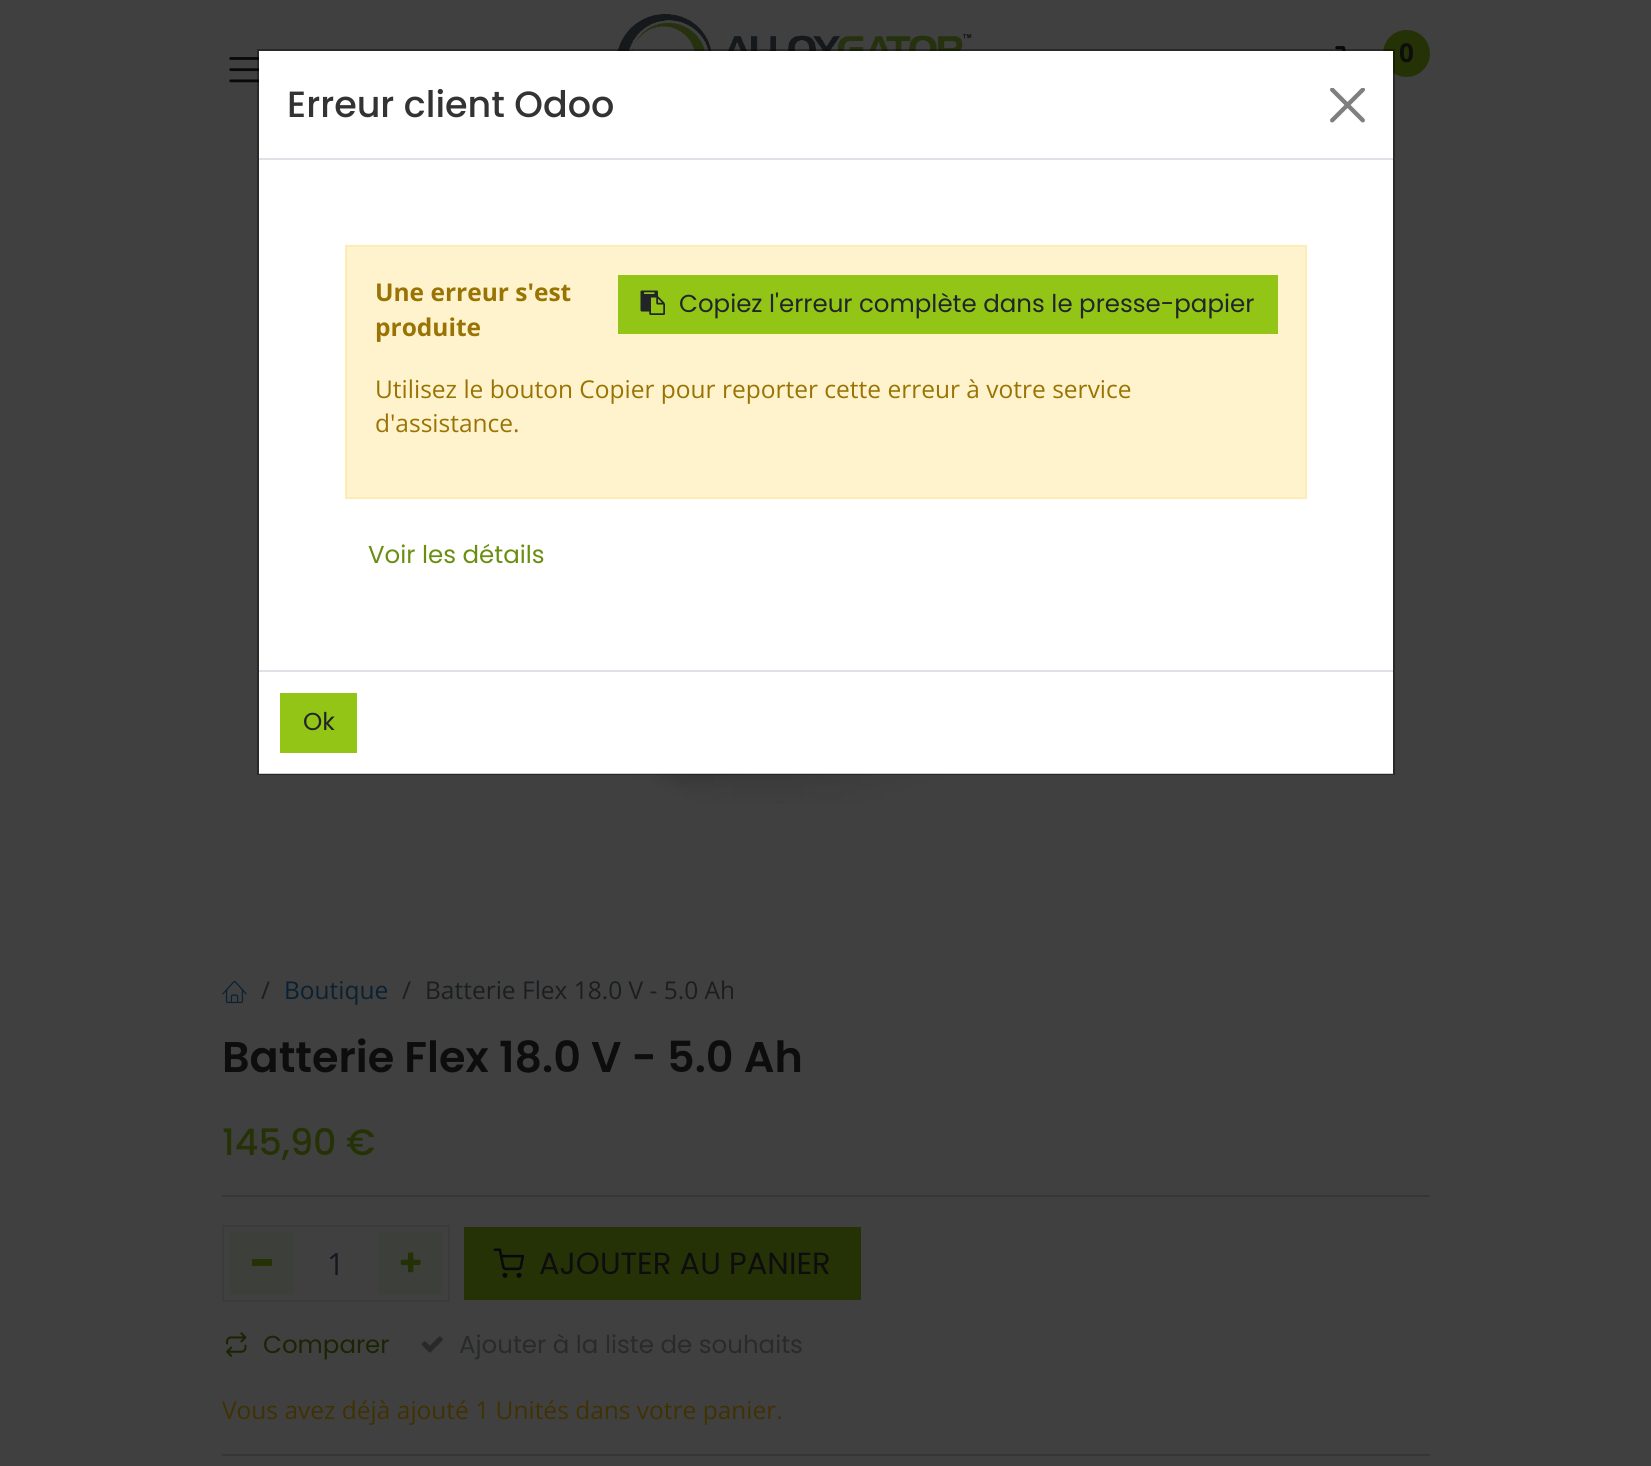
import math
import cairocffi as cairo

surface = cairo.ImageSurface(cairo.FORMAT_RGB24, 1651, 1466)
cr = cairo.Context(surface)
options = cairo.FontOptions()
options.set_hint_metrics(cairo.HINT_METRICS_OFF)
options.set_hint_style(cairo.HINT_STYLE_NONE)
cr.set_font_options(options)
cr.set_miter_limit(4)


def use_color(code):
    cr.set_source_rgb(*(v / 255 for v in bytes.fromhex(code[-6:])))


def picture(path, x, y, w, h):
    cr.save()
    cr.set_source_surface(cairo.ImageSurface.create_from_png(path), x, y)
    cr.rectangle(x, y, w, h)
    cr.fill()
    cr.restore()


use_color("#404040")
cr.paint()
picture("img1.png", 617, 14, 355, 37)
picture("img2.png", 1335, 46, 11, 5)
use_color("#253206")
cr.arc(1406.5, 53.5, 23.5, 0, 2 * math.pi)
cr.fill()
cr.select_font_face("Open Sans", cairo.FONT_SLANT_NORMAL, cairo.FONT_WEIGHT_BOLD)
cr.set_font_size(26)
use_color("#0d0d0d")
cr.move_to(1399, 62)
cr.show_text("0")
picture("img3.png", 229, 57, 30, 26)
picture("img4.png", 515, 774, 616, 30)
picture("img5.png", 222, 980, 25, 24)
cr.select_font_face("Open Sans")
cr.set_font_size(24.5)
use_color("#1b1e20")
cr.move_to(261, 999)
cr.show_text("/")
use_color("#092132")
cr.move_to(284, 999)
cr.show_text("Boutique")
use_color("#1b1e20")
cr.move_to(402, 999)
cr.show_text("/")
cr.move_to(425, 999)
cr.show_text("Batterie Flex 18.0 V - 5.0 Ah")
cr.select_font_face("Poppins SemiBold")
cr.set_font_size(42.9)
use_color("#0d0d0d")
cr.move_to(222, 1072)
cr.show_text("Batterie Flex 18.0 V - 5.0 Ah")
cr.select_font_face("Poppins Medium")
cr.set_font_size(36.5)
use_color("#253206")
cr.move_to(222, 1155)
cr.show_text("145,90 €")
use_color("#353638")
cr.rectangle(222, 1195, 1208, 2)
cr.fill()
cr.rectangle(223, 1226, 226, 75)
use_color("#3b3b3c")
cr.stroke()
use_color("#3d3f3a")
cr.rectangle(229, 1232, 65, 63)
cr.fill()
use_color("#253206")
cr.rectangle(252, 1259, 20, 7)
cr.fill()
cr.select_font_face("Open Sans")
cr.set_font_size(30.6)
use_color("#14171f")
cr.move_to(327, 1275)
cr.show_text("1")
use_color("#3d3f3a")
cr.rectangle(378, 1232, 65, 63)
cr.fill()
picture("img6.png", 400, 1252, 21, 21)
use_color("#253206")
cr.rectangle(464, 1227, 397, 73)
cr.fill()
picture("img7.png", 493, 1248, 32, 30)
cr.select_font_face("Poppins")
use_color("#0d0d0d")
cr.move_to(539, 1274)
cr.show_text("AJOUTER AU PANIER")
picture("img8.png", 226, 1332, 21, 25)
cr.set_font_size(24.5)
use_color("#1b2404")
cr.move_to(263, 1353)
cr.show_text("Comparer")
picture("img9.png", 421, 1336, 22, 17)
use_color("#282a2b")
cr.move_to(459, 1353)
cr.show_text("Ajouter à la liste de souhaits")
cr.select_font_face("Open Sans")
use_color("#403102")
cr.move_to(222, 1419)
cr.show_text("Vous avez déjà ajouté 1 Unités dans votre panier.")
use_color("#353638")
cr.rectangle(222, 1454, 1208, 2)
cr.fill()
cr.rectangle(258, 50, 1136, 724)
cr.set_source_rgba(0, 0, 0, 0.2)
cr.stroke()
use_color("#ffffff")
cr.rectangle(259, 51, 1134, 723)
cr.fill()
cr.rectangle(258, 50, 1136, 724)
cr.set_source_rgba(0, 0, 0, 0.2)
cr.stroke()
use_color("#dee2e6")
cr.rectangle(259, 158, 1134, 2)
cr.fill()
cr.select_font_face("Poppins Medium")
cr.set_font_size(36.5)
use_color("#333333")
cr.move_to(287, 117)
cr.show_text("Erreur client Odoo")
picture("img10.png", 1330, 88, 35, 35)
use_color("#fff3cd")
cr.rectangle(346, 246, 960, 252)
cr.fill_preserve()
use_color("#ffecb5")
cr.stroke()
cr.select_font_face("Open Sans", cairo.FONT_SLANT_NORMAL, cairo.FONT_WEIGHT_BOLD)
cr.set_font_size(24.5)
use_color("#997404")
cr.move_to(375, 301)
cr.show_text("Une erreur s'est")
cr.move_to(375, 336)
cr.show_text("produite")
use_color("#92c516")
cr.rectangle(618, 275, 660, 59)
cr.fill()
picture("img11.png", 640, 290, 25, 25)
cr.select_font_face("Poppins")
use_color("#212529")
cr.move_to(679, 312)
cr.show_text("Copiez l'erreur complète dans le presse-papier")
cr.select_font_face("Open Sans")
use_color("#997404")
cr.move_to(375, 398)
cr.show_text("Utilisez le bouton Copier pour reporter cette erreur à votre service")
cr.move_to(375, 432)
cr.show_text("d'assistance.")
cr.select_font_face("Poppins")
use_color("#698e10")
cr.move_to(368, 563)
cr.show_text("Voir les détails")
use_color("#dee2e6")
cr.rectangle(259, 670, 1134, 2)
cr.fill()
use_color("#92c516")
cr.rectangle(280, 693, 77, 60)
cr.fill()
use_color("#212529")
cr.move_to(303, 730)
cr.show_text("Ok")
surface.write_to_png("result.png")
